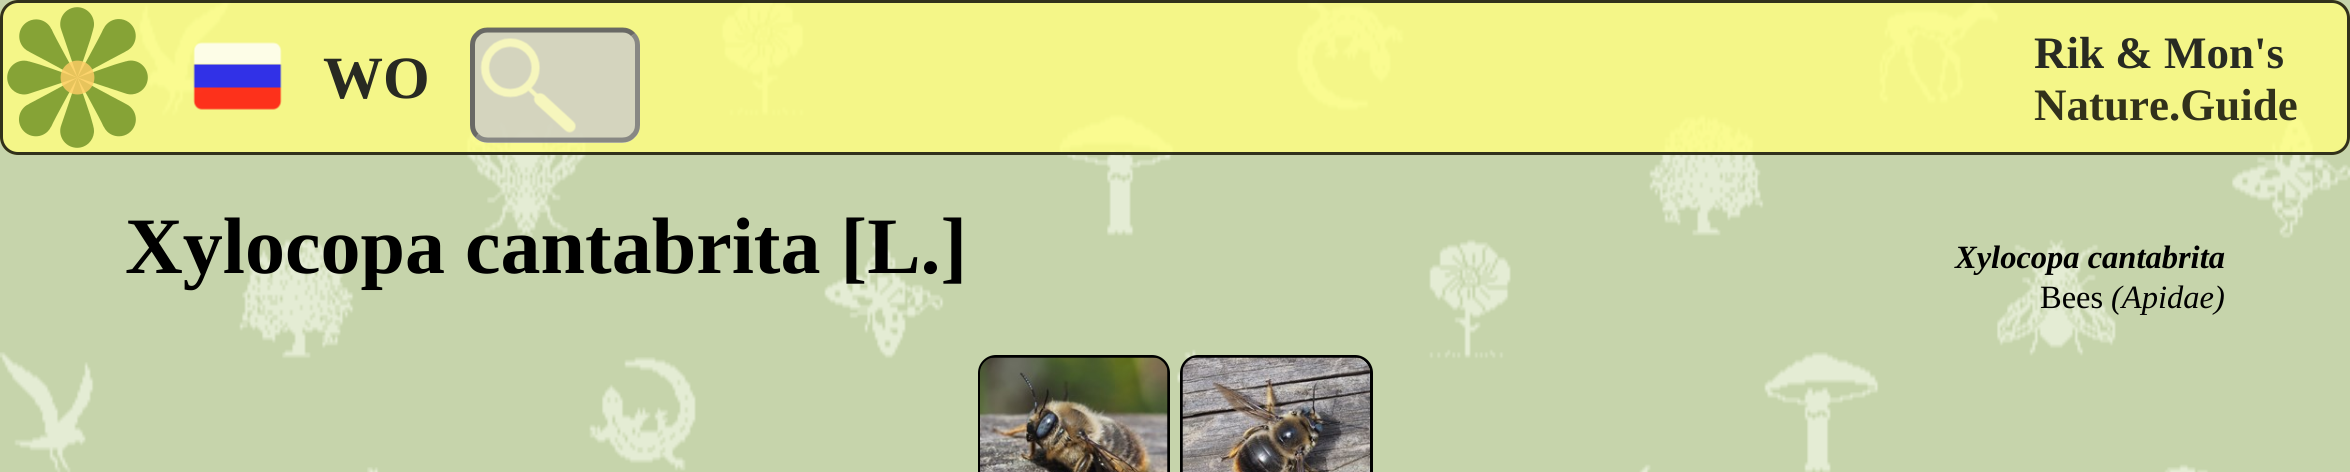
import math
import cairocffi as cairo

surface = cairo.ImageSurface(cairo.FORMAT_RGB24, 2350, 472)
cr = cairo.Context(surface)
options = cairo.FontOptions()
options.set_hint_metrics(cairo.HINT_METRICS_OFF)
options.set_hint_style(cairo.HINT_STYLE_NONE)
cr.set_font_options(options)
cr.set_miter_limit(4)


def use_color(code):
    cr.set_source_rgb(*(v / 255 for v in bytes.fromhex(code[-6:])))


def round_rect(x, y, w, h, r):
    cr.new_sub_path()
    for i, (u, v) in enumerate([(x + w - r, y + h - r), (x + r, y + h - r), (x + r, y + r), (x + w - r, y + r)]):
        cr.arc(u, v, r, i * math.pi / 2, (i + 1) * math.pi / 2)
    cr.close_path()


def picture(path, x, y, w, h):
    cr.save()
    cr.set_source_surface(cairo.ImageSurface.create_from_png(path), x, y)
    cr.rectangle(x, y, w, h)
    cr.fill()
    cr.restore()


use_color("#ffffff")
cr.paint()
picture("img1.png", 0, 0, 2350, 472)
cr.set_source_rgba(1, 1, 0.502, 0.8)
round_rect(0, 0, 2350, 155, 18)
cr.fill()
round_rect(1.5, 1.5, 2347, 152, 16.5)
cr.set_source_rgba(0, 0, 0, 0.8)
cr.set_line_width(3)
cr.stroke()
picture("img2.png", 7, 7, 141, 141)
picture("img3.png", 193, 42, 89, 68)
cr.select_font_face("Liberation Serif", cairo.FONT_SLANT_NORMAL, cairo.FONT_WEIGHT_BOLD)
cr.set_font_size(60)
use_color("#282a22")
cr.move_to(323, 98)
cr.show_text("WO")
cr.set_source_rgba(0.8, 0.8, 0.8, 0.8)
round_rect(470, 28, 170, 115, 18)
cr.fill()
picture("img4.png", 480, 38, 96, 95)
cr.new_path()
cr.move_to(633, 34.5)
cr.curve_to(636, 37, 637.5, 41, 637.5, 45)
cr.line_to(637.5, 125)
cr.curve_to(637.5, 129, 636, 133, 633, 135.5)
cr.curve_to(630.5, 138.5, 626.5, 140, 622.5, 140)
cr.line_to(487.5, 140)
cr.curve_to(483.5, 140, 479.5, 138.5, 477, 135.5)
cr.set_source_rgba(0.463, 0.463, 0.463, 0.8)
cr.set_line_width(5)
cr.stroke()
cr.new_path()
cr.move_to(477, 135.5)
cr.curve_to(474, 133, 472.5, 129, 472.5, 125)
cr.line_to(472.5, 45)
cr.curve_to(472.5, 41, 474, 37, 477, 34.5)
cr.curve_to(479.5, 31.5, 483.5, 30, 487.5, 30)
cr.line_to(622.5, 30)
cr.curve_to(626.5, 30, 630.5, 31.5, 633, 34.5)
cr.set_source_rgba(0.31, 0.31, 0.31, 0.8)
cr.stroke()
cr.set_font_size(45)
use_color("#282a22")
cr.move_to(2034, 68)
cr.show_text("Rik & Mon's")
use_color("#31311b")
cr.move_to(2034, 120)
cr.show_text("Nature.Guide")
cr.set_font_size(80)
use_color("#000000")
cr.move_to(125, 273)
cr.show_text("Xylocopa cantabrita [L.]")
cr.select_font_face("Liberation Serif", cairo.FONT_SLANT_ITALIC, cairo.FONT_WEIGHT_BOLD)
cr.set_font_size(32.5)
cr.move_to(1955, 268)
cr.show_text("Xylocopa cantabrita")
cr.select_font_face("Liberation Serif")
cr.move_to(2040, 308)
cr.show_text("Bees")
cr.select_font_face("Liberation Serif", cairo.FONT_SLANT_ITALIC)
cr.move_to(2111, 308)
cr.show_text("(Apidae)")
round_rect(979.5, 356.5, 189, 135, 16.5)
cr.set_line_width(3)
cr.stroke()
picture("img5.png", 980, 357, 188, 115)
round_rect(1181.5, 356.5, 190, 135, 16.5)
cr.stroke()
picture("img6.png", 1182, 357, 188, 115)
surface.write_to_png("result.png")
